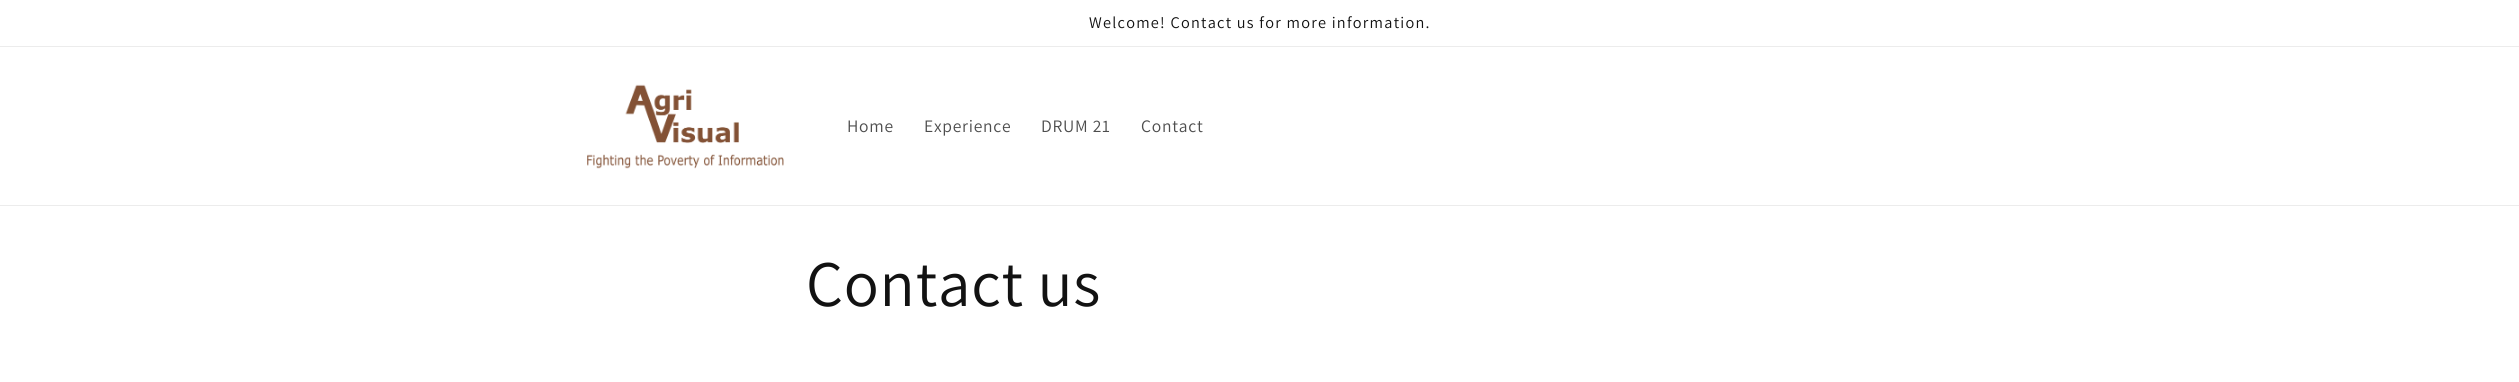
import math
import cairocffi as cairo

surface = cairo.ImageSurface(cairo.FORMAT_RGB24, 2519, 382)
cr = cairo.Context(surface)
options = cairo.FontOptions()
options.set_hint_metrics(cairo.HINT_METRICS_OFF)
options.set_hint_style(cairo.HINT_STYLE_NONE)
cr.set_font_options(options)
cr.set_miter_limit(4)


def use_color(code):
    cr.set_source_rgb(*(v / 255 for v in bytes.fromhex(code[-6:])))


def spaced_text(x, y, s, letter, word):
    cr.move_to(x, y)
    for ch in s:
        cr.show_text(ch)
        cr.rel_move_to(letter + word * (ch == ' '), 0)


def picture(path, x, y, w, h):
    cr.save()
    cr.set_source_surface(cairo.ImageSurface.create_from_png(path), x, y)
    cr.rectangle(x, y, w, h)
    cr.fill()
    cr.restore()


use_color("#ffffff")
cr.paint()
use_color("#ececec")
cr.rectangle(0, 46, 2519, 1)
cr.fill()
cr.select_font_face("Assistant")
cr.set_font_size(16.25)
use_color("#121212")
spaced_text(1089, 28, "Welcome! Contact us for more information.", 1.25, 0)
use_color("#ececec")
cr.rectangle(0, 205, 2519, 1)
cr.fill()
picture("img1.png", 587, 84, 197, 85)
cr.set_font_size(17.5)
use_color("#4d4d4d")
spaced_text(847, 132, "Home", 0.75, 0)
spaced_text(924, 132, "Experience", 0.75, 0)
spaced_text(1041, 132, "DRUM 21", 0.75, 0)
spaced_text(1141, 132, "Contact", 0.75, 0)
cr.set_font_size(65)
use_color("#121212")
spaced_text(806, 306, "Contact us", 0.75, 0)
surface.write_to_png("result.png")
